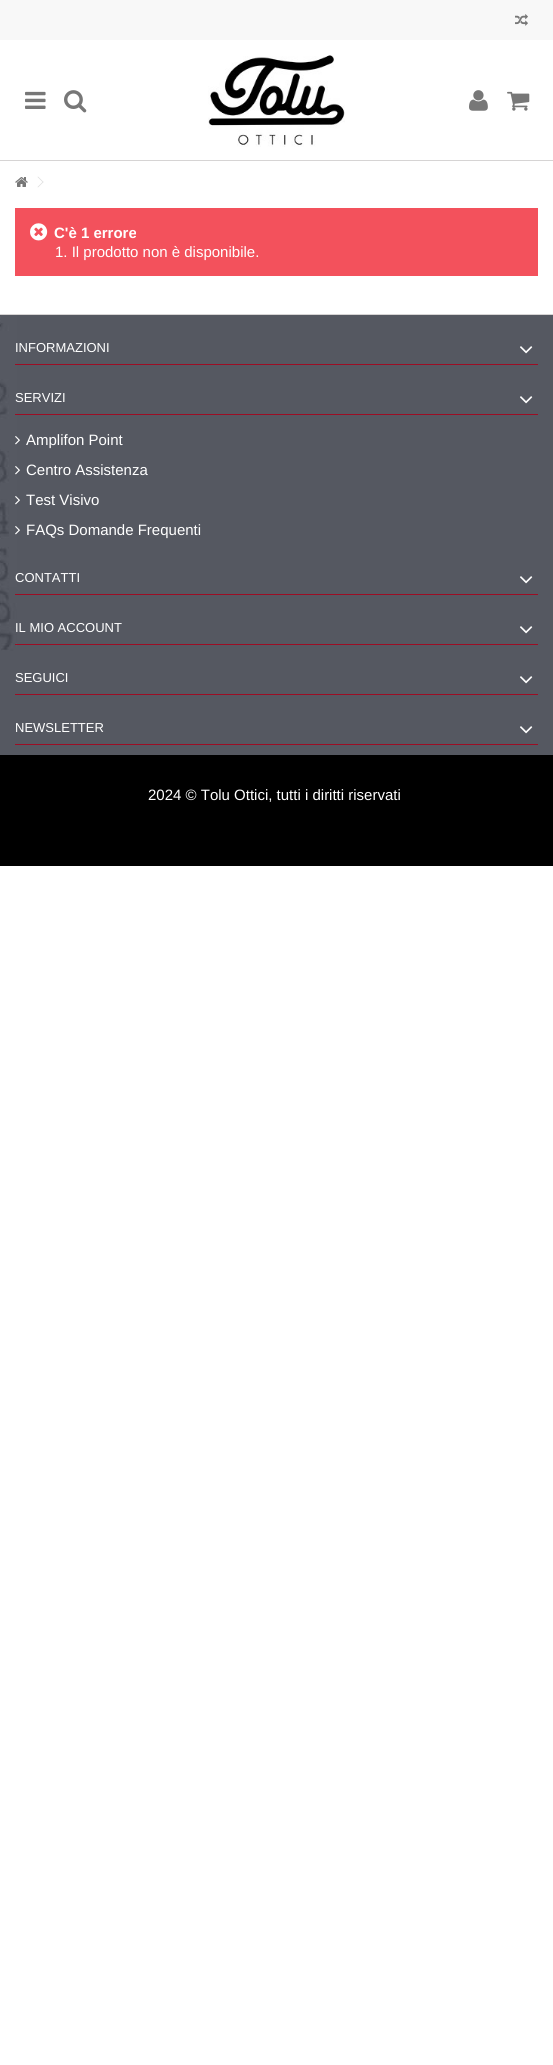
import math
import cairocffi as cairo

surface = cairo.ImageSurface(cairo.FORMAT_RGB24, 553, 2065)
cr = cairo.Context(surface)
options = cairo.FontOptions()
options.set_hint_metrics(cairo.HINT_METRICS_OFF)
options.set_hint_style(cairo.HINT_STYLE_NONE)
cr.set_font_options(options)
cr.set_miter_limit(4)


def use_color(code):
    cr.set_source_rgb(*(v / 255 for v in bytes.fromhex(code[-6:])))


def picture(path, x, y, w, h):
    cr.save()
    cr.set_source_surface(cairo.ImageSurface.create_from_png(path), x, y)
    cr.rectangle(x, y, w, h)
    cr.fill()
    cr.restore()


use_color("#ffffff")
cr.paint()
use_color("#f8f8f8")
cr.rectangle(0, 0, 553, 40)
cr.fill()
picture("img1.png", 515, 14, 13, 12)
use_color("#d6d4d4")
cr.rectangle(0, 160, 553, 1)
cr.fill()
picture("img2.png", 25, 91, 21, 18)
picture("img3.png", 64, 90, 23, 23)
picture("img4.png", 208, 55, 137, 92)
picture("img5.png", 469, 90, 19, 21)
picture("img6.png", 507, 91, 23, 20)
picture("img7.png", 15, 177, 13, 10)
use_color("#dddddd")
cr.new_path()
cr.move_to(38, 176.5)
cr.line_to(43.5, 182)
cr.line_to(43, 182.5)
cr.line_to(37.5, 177)
cr.close_path()
cr.fill()
cr.new_path()
cr.move_to(43, 181.5)
cr.line_to(43.5, 182)
cr.line_to(38, 187.5)
cr.line_to(37.5, 187)
cr.close_path()
cr.fill()
use_color("#f3515c")
cr.rectangle(15, 208, 523, 68)
cr.fill()
picture("img8.png", 30, 223, 18, 18)
cr.select_font_face("Liberation Sans", cairo.FONT_SLANT_NORMAL, cairo.FONT_WEIGHT_BOLD)
cr.set_font_size(15)
use_color("#ffffff")
cr.move_to(54, 238)
cr.show_text("C'è 1 errore")
cr.select_font_face("Liberation Sans")
cr.move_to(55, 257)
cr.show_text("1. Il prodotto non è disponibile.")
use_color("#000000")
cr.rectangle(0, 755, 553, 111)
cr.fill()
use_color("#d6d4d4")
cr.rectangle(0, 314, 553, 1)
cr.fill()
picture("img9.png", 0, 315, 553, 440)
use_color("#9d0d24")
cr.rectangle(15, 364, 523, 1)
cr.fill()
cr.set_font_size(13)
use_color("#ffffff")
cr.move_to(15, 352)
cr.show_text("INFORMAZIONI")
picture("img10.png", 520, 346, 13, 8)
use_color("#9d0d24")
cr.rectangle(15, 414, 523, 1)
cr.fill()
use_color("#ffffff")
cr.move_to(15, 402)
cr.show_text("SERVIZI")
picture("img10.png", 520, 396, 13, 8)
picture("img11.png", 15, 436, 5, 9)
cr.set_font_size(15)
cr.move_to(26, 445)
cr.show_text("Amplifon Point")
picture("img11.png", 15, 466, 5, 9)
cr.move_to(26, 475)
cr.show_text("Centro Assistenza")
picture("img11.png", 15, 496, 5, 9)
cr.move_to(26, 505)
cr.show_text("Test Visivo")
picture("img11.png", 15, 526, 5, 9)
cr.move_to(26, 535)
cr.show_text("FAQs Domande Frequenti")
use_color("#9d0d24")
cr.rectangle(15, 594, 523, 1)
cr.fill()
cr.set_font_size(13)
use_color("#ffffff")
cr.move_to(15, 582)
cr.show_text("CONTATTI")
picture("img10.png", 520, 576, 13, 8)
use_color("#9d0d24")
cr.rectangle(15, 644, 523, 1)
cr.fill()
use_color("#ffffff")
cr.move_to(15, 632)
cr.show_text("IL MIO ACCOUNT")
picture("img10.png", 520, 626, 13, 8)
use_color("#9d0d24")
cr.rectangle(15, 694, 523, 1)
cr.fill()
use_color("#ffffff")
cr.move_to(15, 682)
cr.show_text("SEGUICI")
picture("img10.png", 520, 676, 13, 8)
use_color("#9d0d24")
cr.rectangle(15, 744, 523, 1)
cr.fill()
use_color("#ffffff")
cr.move_to(15, 732)
cr.show_text("NEWSLETTER")
picture("img10.png", 520, 726, 13, 8)
cr.set_font_size(15)
cr.move_to(148, 800)
cr.show_text("2024 © Tolu Ottici, tutti i diritti riservati")
surface.write_to_png("result.png")
